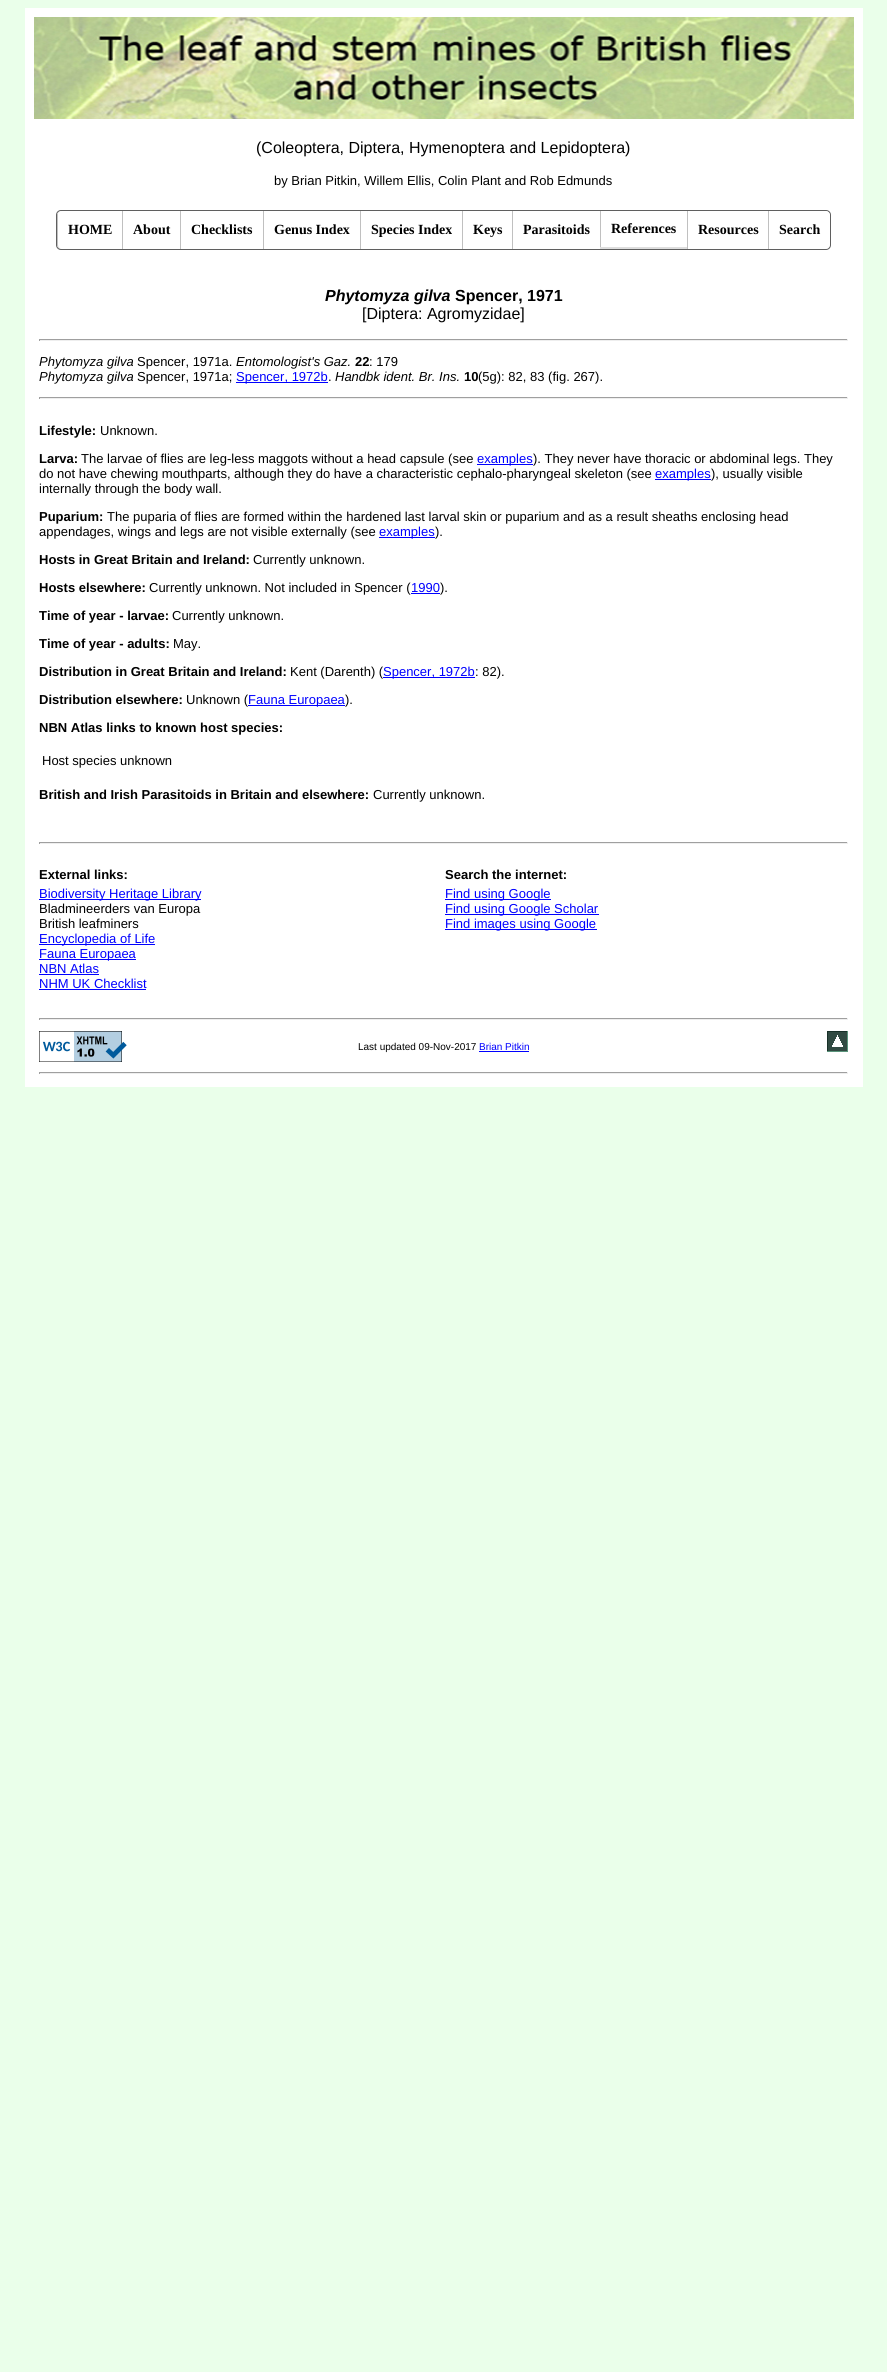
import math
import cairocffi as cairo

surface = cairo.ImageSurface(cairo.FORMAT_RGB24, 887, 2372)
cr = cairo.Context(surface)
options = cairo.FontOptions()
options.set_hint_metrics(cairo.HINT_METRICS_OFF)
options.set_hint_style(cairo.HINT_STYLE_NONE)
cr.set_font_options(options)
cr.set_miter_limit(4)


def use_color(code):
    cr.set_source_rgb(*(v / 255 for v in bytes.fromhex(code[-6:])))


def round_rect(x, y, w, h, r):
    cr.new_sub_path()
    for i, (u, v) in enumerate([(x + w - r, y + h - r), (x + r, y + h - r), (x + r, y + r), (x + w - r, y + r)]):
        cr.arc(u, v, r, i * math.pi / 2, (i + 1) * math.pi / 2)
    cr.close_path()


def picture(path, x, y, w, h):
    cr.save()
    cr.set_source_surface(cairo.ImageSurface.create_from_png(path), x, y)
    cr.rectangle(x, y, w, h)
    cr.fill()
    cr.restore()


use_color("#eaffea")
cr.paint()
use_color("#ffffff")
cr.rectangle(25, 8, 838, 1079)
cr.fill()
picture("img1.png", 34, 17, 820, 102)
cr.select_font_face("Liberation Sans")
cr.set_font_size(16)
use_color("#000000")
cr.move_to(256, 153)
cr.show_text("(Coleoptera, Diptera, Hymenoptera and Lepidoptera)")
cr.set_font_size(13)
cr.move_to(274, 185)
cr.show_text("by Brian Pitkin, Willem Ellis, Colin Plant and Rob Edmunds")
use_color("#dedede")
round_rect(56.5, 210.5, 774, 39, 4.5)
cr.fill_preserve()
use_color("#5f5f5f")
cr.set_line_width(1)
cr.stroke()
use_color("#ffffff")
cr.new_path()
cr.move_to(62, 211)
cr.line_to(122, 211)
cr.line_to(122, 249)
cr.line_to(62, 249)
cr.curve_to(60, 249, 58, 247, 58, 244)
cr.line_to(58, 216)
cr.curve_to(58, 213, 60, 211, 62, 211)
cr.close_path()
cr.fill()
picture("img2.png", 57, 211, 4, 31)
use_color("#c0c0c0")
cr.rectangle(57, 214, 1, 33)
cr.fill()
cr.select_font_face("Liberation Serif", cairo.FONT_SLANT_NORMAL, cairo.FONT_WEIGHT_BOLD)
cr.set_font_size(14)
use_color("#000000")
cr.move_to(68, 234)
cr.show_text("HOME")
use_color("#ffffff")
cr.rectangle(123, 211, 57, 38)
cr.fill()
use_color("#c0c0c0")
cr.rectangle(122, 211, 1, 38)
cr.fill()
use_color("#000000")
cr.move_to(133, 234)
cr.show_text("About")
use_color("#ffffff")
cr.rectangle(181, 211, 82, 38)
cr.fill()
use_color("#c0c0c0")
cr.rectangle(180, 211, 1, 38)
cr.fill()
use_color("#000000")
cr.move_to(191, 234)
cr.show_text("Checklists")
use_color("#ffffff")
cr.rectangle(264, 211, 96, 38)
cr.fill()
use_color("#c0c0c0")
cr.rectangle(263, 211, 1, 38)
cr.fill()
use_color("#000000")
cr.move_to(274, 234)
cr.show_text("Genus Index")
use_color("#ffffff")
cr.rectangle(361, 211, 101, 38)
cr.fill()
use_color("#c0c0c0")
cr.rectangle(360, 211, 1, 38)
cr.fill()
use_color("#000000")
cr.move_to(371, 234)
cr.show_text("Species Index")
use_color("#ffffff")
cr.rectangle(463, 211, 49, 38)
cr.fill()
use_color("#c0c0c0")
cr.rectangle(462, 211, 1, 38)
cr.fill()
use_color("#000000")
cr.move_to(473, 234)
cr.show_text("Keys")
use_color("#ffffff")
cr.rectangle(513, 211, 87, 38)
cr.fill()
use_color("#c0c0c0")
cr.rectangle(512, 211, 1, 38)
cr.fill()
use_color("#000000")
cr.move_to(523, 234)
cr.show_text("Parasitoids")
use_color("#ffffff")
cr.rectangle(601, 211, 86, 36)
cr.fill()
use_color("#c0c0c0")
cr.rectangle(600, 211, 1, 36)
cr.fill()
use_color("#000000")
cr.move_to(611, 233)
cr.show_text("References")
use_color("#ffffff")
cr.rectangle(688, 211, 80, 38)
cr.fill()
use_color("#c0c0c0")
cr.rectangle(687, 211, 1, 38)
cr.fill()
use_color("#000000")
cr.move_to(698, 234)
cr.show_text("Resources")
use_color("#ffffff")
cr.new_path()
cr.move_to(769, 211)
cr.line_to(825, 211)
cr.curve_to(828, 211, 830, 213, 830, 216)
cr.line_to(830, 244)
cr.curve_to(830, 247, 828, 249, 825, 249)
cr.line_to(769, 249)
cr.close_path()
cr.fill()
picture("img3.png", 769, 211, 61, 31)
use_color("#c0c0c0")
cr.rectangle(768, 211, 1, 38)
cr.fill()
use_color("#000000")
cr.move_to(779, 234)
cr.show_text("Search")
cr.select_font_face("Liberation Sans", cairo.FONT_SLANT_ITALIC, cairo.FONT_WEIGHT_BOLD)
cr.set_font_size(16)
cr.move_to(325, 301)
cr.show_text("Phytomyza gilva")
cr.select_font_face("Liberation Sans", cairo.FONT_SLANT_NORMAL, cairo.FONT_WEIGHT_BOLD)
cr.move_to(455, 301)
cr.show_text("Spencer, 1971")
cr.select_font_face("Liberation Sans")
cr.move_to(362, 319)
cr.show_text("[Diptera: Agromyzidae]")
use_color("#9f9f9f")
cr.rectangle(39, 339, 809, 1)
cr.fill()
use_color("#eeeeee")
cr.rectangle(847, 339, 1, 2)
cr.fill()
cr.rectangle(39, 340, 809, 1)
cr.fill()
use_color("#9f9f9f")
cr.rectangle(39, 339, 1, 2)
cr.fill()
cr.select_font_face("Liberation Sans", cairo.FONT_SLANT_ITALIC)
cr.set_font_size(13)
use_color("#000000")
cr.move_to(39, 366)
cr.show_text("Phytomyza gilva")
cr.select_font_face("Liberation Sans")
cr.move_to(137, 366)
cr.show_text("Spencer, 1971a.")
cr.select_font_face("Liberation Sans", cairo.FONT_SLANT_ITALIC)
cr.move_to(236, 366)
cr.show_text("Entomologist's Gaz.")
cr.select_font_face("Liberation Sans", cairo.FONT_SLANT_NORMAL, cairo.FONT_WEIGHT_BOLD)
cr.move_to(355, 366)
cr.show_text("22")
cr.select_font_face("Liberation Sans")
cr.move_to(369, 366)
cr.show_text(": 179")
cr.select_font_face("Liberation Sans", cairo.FONT_SLANT_ITALIC)
cr.move_to(39, 381)
cr.show_text("Phytomyza gilva")
cr.select_font_face("Liberation Sans")
cr.move_to(137, 381)
cr.show_text("Spencer, 1971a;")
use_color("#0000ff")
cr.rectangle(236, 382, 92, 1)
cr.fill()
cr.move_to(236, 381)
cr.show_text("Spencer, 1972b")
use_color("#000000")
cr.move_to(328, 381)
cr.show_text(".")
cr.select_font_face("Liberation Sans", cairo.FONT_SLANT_ITALIC)
cr.move_to(335, 381)
cr.show_text("Handbk ident. Br. Ins.")
cr.select_font_face("Liberation Sans", cairo.FONT_SLANT_NORMAL, cairo.FONT_WEIGHT_BOLD)
cr.move_to(464, 381)
cr.show_text("10")
cr.select_font_face("Liberation Sans")
cr.move_to(478, 381)
cr.show_text("(5g): 82, 83 (fig. 267).")
use_color("#9f9f9f")
cr.rectangle(39, 397, 809, 1)
cr.fill()
use_color("#eeeeee")
cr.rectangle(847, 397, 1, 2)
cr.fill()
cr.rectangle(39, 398, 809, 1)
cr.fill()
use_color("#9f9f9f")
cr.rectangle(39, 397, 1, 2)
cr.fill()
cr.select_font_face("Liberation Sans", cairo.FONT_SLANT_NORMAL, cairo.FONT_WEIGHT_BOLD)
use_color("#000000")
cr.move_to(39, 435)
cr.show_text("Lifestyle:")
cr.select_font_face("Liberation Sans")
cr.move_to(100, 435)
cr.show_text("Unknown.")
cr.select_font_face("Liberation Sans", cairo.FONT_SLANT_NORMAL, cairo.FONT_WEIGHT_BOLD)
cr.move_to(39, 463)
cr.show_text("Larva:")
cr.select_font_face("Liberation Sans")
cr.move_to(81, 463)
cr.show_text("The larvae of flies are leg-less maggots without a head capsule (see")
use_color("#0000ff")
cr.rectangle(477, 464, 56, 1)
cr.fill()
cr.move_to(477, 463)
cr.show_text("examples")
use_color("#000000")
cr.move_to(533, 463)
cr.show_text("). They never have thoracic or abdominal legs. They")
cr.move_to(39, 478)
cr.show_text("do not have chewing mouthparts, although they do have a characteristic cephalo-pharyngeal skeleton (see")
use_color("#0000ff")
cr.rectangle(655, 479, 56, 1)
cr.fill()
cr.move_to(655, 478)
cr.show_text("examples")
use_color("#000000")
cr.move_to(711, 478)
cr.show_text("), usually visible")
cr.move_to(39, 493)
cr.show_text("internally through the body wall.")
cr.select_font_face("Liberation Sans", cairo.FONT_SLANT_NORMAL, cairo.FONT_WEIGHT_BOLD)
cr.move_to(39, 521)
cr.show_text("Puparium:")
cr.select_font_face("Liberation Sans")
cr.move_to(107, 521)
cr.show_text("The puparia of flies are formed within the hardened last larval skin or puparium and as a result sheaths enclosing head")
cr.move_to(39, 536)
cr.show_text("appendages, wings and legs are not visible externally (see")
use_color("#0000ff")
cr.rectangle(379, 537, 56, 1)
cr.fill()
cr.move_to(379, 536)
cr.show_text("examples")
use_color("#000000")
cr.move_to(435, 536)
cr.show_text(").")
cr.select_font_face("Liberation Sans", cairo.FONT_SLANT_NORMAL, cairo.FONT_WEIGHT_BOLD)
cr.move_to(39, 564)
cr.show_text("Hosts in Great Britain and Ireland:")
cr.select_font_face("Liberation Sans")
cr.move_to(253, 564)
cr.show_text("Currently unknown.")
cr.select_font_face("Liberation Sans", cairo.FONT_SLANT_NORMAL, cairo.FONT_WEIGHT_BOLD)
cr.move_to(39, 592)
cr.show_text("Hosts elsewhere:")
cr.select_font_face("Liberation Sans")
cr.move_to(149, 592)
cr.show_text("Currently unknown. Not included in Spencer (")
use_color("#0000ff")
cr.move_to(411, 592)
cr.show_text("1990")
cr.rectangle(411, 593, 29, 1)
cr.fill()
use_color("#000000")
cr.move_to(440, 592)
cr.show_text(").")
cr.select_font_face("Liberation Sans", cairo.FONT_SLANT_NORMAL, cairo.FONT_WEIGHT_BOLD)
cr.move_to(39, 620)
cr.show_text("Time of year - larvae:")
cr.select_font_face("Liberation Sans")
cr.move_to(172, 620)
cr.show_text("Currently unknown.")
cr.select_font_face("Liberation Sans", cairo.FONT_SLANT_NORMAL, cairo.FONT_WEIGHT_BOLD)
cr.move_to(39, 648)
cr.show_text("Time of year - adults:")
cr.select_font_face("Liberation Sans")
cr.move_to(173, 648)
cr.show_text("May.")
cr.select_font_face("Liberation Sans", cairo.FONT_SLANT_NORMAL, cairo.FONT_WEIGHT_BOLD)
cr.move_to(39, 676)
cr.show_text("Distribution in Great Britain and Ireland:")
cr.select_font_face("Liberation Sans")
cr.move_to(290, 676)
cr.show_text("Kent (Darenth) (")
use_color("#0000ff")
cr.rectangle(383, 677, 92, 1)
cr.fill()
cr.move_to(383, 676)
cr.show_text("Spencer, 1972b")
use_color("#000000")
cr.move_to(475, 676)
cr.show_text(": 82).")
cr.select_font_face("Liberation Sans", cairo.FONT_SLANT_NORMAL, cairo.FONT_WEIGHT_BOLD)
cr.move_to(39, 704)
cr.show_text("Distribution elsewhere:")
cr.select_font_face("Liberation Sans")
cr.move_to(186, 704)
cr.show_text("Unknown (")
use_color("#0000ff")
cr.rectangle(248, 705, 97, 1)
cr.fill()
cr.move_to(248, 704)
cr.show_text("Fauna Europaea")
use_color("#000000")
cr.move_to(345, 704)
cr.show_text(").")
cr.select_font_face("Liberation Sans", cairo.FONT_SLANT_NORMAL, cairo.FONT_WEIGHT_BOLD)
cr.move_to(39, 732)
cr.show_text("NBN Atlas links to known host species:")
cr.select_font_face("Liberation Sans")
cr.move_to(42, 765)
cr.show_text("Host species unknown")
cr.select_font_face("Liberation Sans", cairo.FONT_SLANT_NORMAL, cairo.FONT_WEIGHT_BOLD)
cr.move_to(39, 799)
cr.show_text("British and Irish Parasitoids in Britain and elsewhere:")
cr.select_font_face("Liberation Sans")
cr.move_to(373, 799)
cr.show_text("Currently unknown.")
use_color("#9f9f9f")
cr.rectangle(39, 842, 809, 1)
cr.fill()
use_color("#eeeeee")
cr.rectangle(847, 842, 1, 2)
cr.fill()
cr.rectangle(39, 843, 809, 1)
cr.fill()
use_color("#9f9f9f")
cr.rectangle(39, 842, 1, 2)
cr.fill()
cr.select_font_face("Liberation Sans", cairo.FONT_SLANT_NORMAL, cairo.FONT_WEIGHT_BOLD)
use_color("#000000")
cr.move_to(39, 879)
cr.show_text("External links:")
cr.move_to(445, 879)
cr.show_text("Search the internet:")
use_color("#0000ff")
cr.rectangle(39, 899, 162, 1)
cr.fill()
cr.select_font_face("Liberation Sans")
cr.move_to(39, 898)
cr.show_text("Biodiversity Heritage Library")
use_color("#000000")
cr.move_to(39, 913)
cr.show_text("Bladmineerders van Europa")
cr.move_to(39, 928)
cr.show_text("British leafminers")
use_color("#0000ff")
cr.rectangle(39, 944, 116, 1)
cr.fill()
cr.move_to(39, 943)
cr.show_text("Encyclopedia of Life")
cr.rectangle(39, 959, 97, 1)
cr.fill()
cr.move_to(39, 958)
cr.show_text("Fauna Europaea")
cr.move_to(39, 973)
cr.show_text("NBN Atlas")
cr.rectangle(39, 974, 60, 1)
cr.fill()
cr.move_to(39, 988)
cr.show_text("NHM UK Checklist")
cr.rectangle(39, 989, 107, 1)
cr.fill()
cr.rectangle(445, 899, 106, 1)
cr.fill()
cr.move_to(445, 898)
cr.show_text("Find using Google")
cr.rectangle(445, 914, 154, 1)
cr.fill()
cr.move_to(445, 913)
cr.show_text("Find using Google Scholar")
cr.rectangle(445, 929, 152, 1)
cr.fill()
cr.move_to(445, 928)
cr.show_text("Find images using Google")
use_color("#9f9f9f")
cr.rectangle(39, 1018, 809, 1)
cr.fill()
use_color("#eeeeee")
cr.rectangle(847, 1018, 1, 2)
cr.fill()
cr.rectangle(39, 1019, 809, 1)
cr.fill()
use_color("#9f9f9f")
cr.rectangle(39, 1018, 1, 2)
cr.fill()
picture("img4.png", 39, 1031, 88, 31)
cr.set_font_size(10)
use_color("#000000")
cr.move_to(358, 1050)
cr.show_text("Last updated 09-Nov-2017")
use_color("#0000ff")
cr.move_to(479, 1050)
cr.show_text("Brian Pitkin")
cr.rectangle(479, 1051, 50, 1)
cr.fill()
picture("img5.png", 827, 1031, 21, 21)
use_color("#9f9f9f")
cr.rectangle(39, 1072, 809, 1)
cr.fill()
use_color("#eeeeee")
cr.rectangle(847, 1072, 1, 2)
cr.fill()
cr.rectangle(39, 1073, 809, 1)
cr.fill()
use_color("#9f9f9f")
cr.rectangle(39, 1072, 1, 2)
cr.fill()
surface.write_to_png("result.png")
